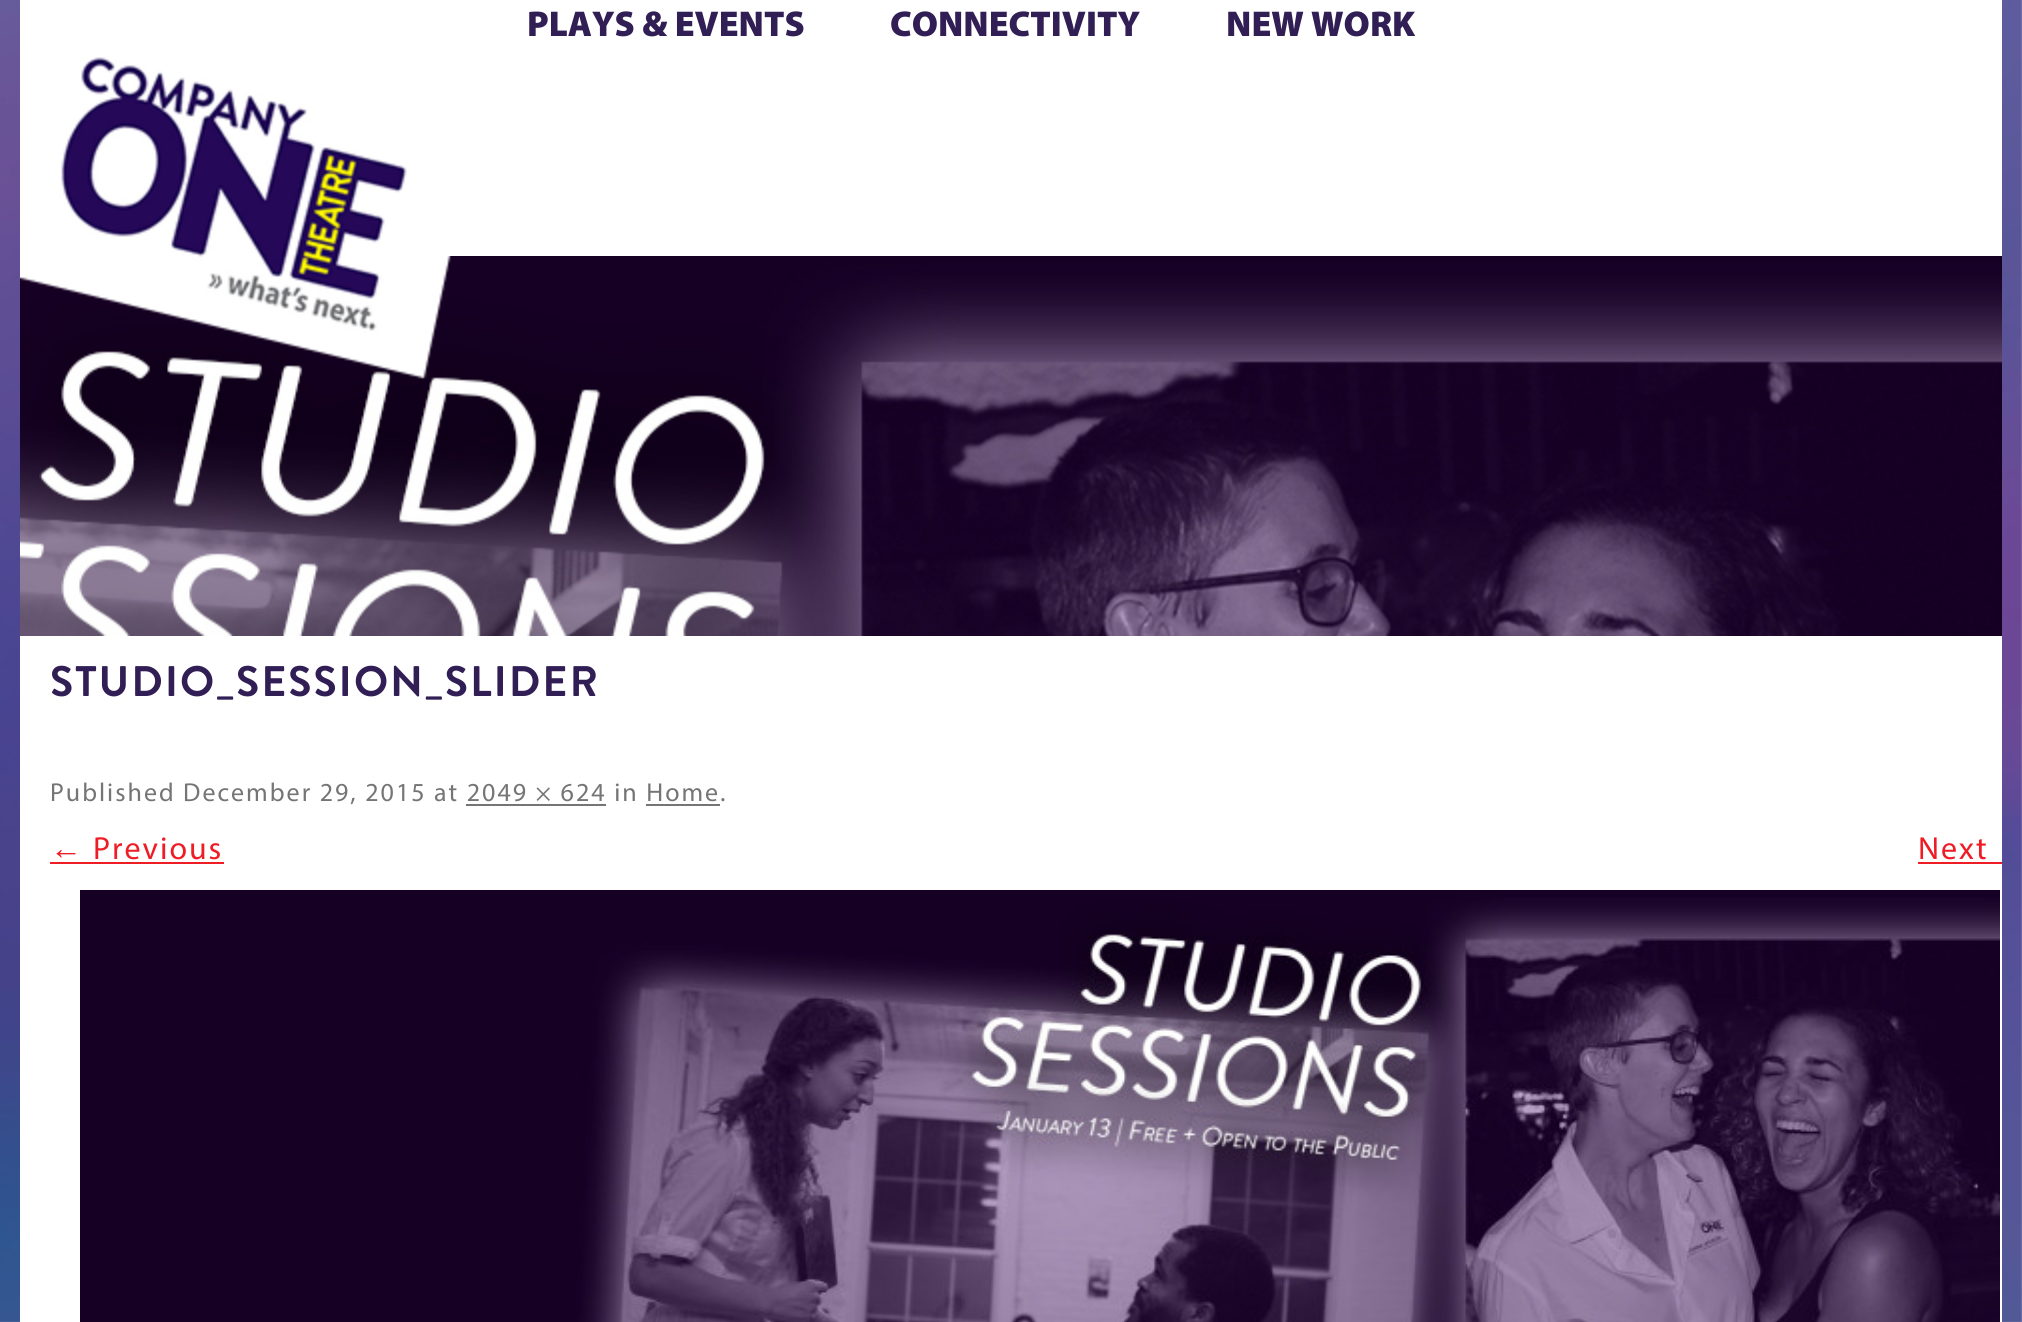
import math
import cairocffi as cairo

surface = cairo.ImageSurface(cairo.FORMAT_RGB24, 2022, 1322)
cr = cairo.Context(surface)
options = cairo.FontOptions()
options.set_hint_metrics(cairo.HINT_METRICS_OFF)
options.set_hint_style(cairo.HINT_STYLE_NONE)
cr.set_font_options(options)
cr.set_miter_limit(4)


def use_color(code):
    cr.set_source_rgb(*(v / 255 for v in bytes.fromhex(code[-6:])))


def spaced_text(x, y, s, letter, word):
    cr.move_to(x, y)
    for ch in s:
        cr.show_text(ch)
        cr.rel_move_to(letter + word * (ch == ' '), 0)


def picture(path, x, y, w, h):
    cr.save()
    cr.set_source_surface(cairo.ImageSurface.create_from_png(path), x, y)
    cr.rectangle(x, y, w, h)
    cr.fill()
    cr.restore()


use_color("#ffffff")
cr.paint()
picture("img1.png", 0, 0, 2022, 1322)
use_color("#ffffff")
cr.rectangle(20, 0, 1982, 1322)
cr.fill()
cr.select_font_face("myriad Black")
cr.set_font_size(36)
use_color("#301e55")
cr.move_to(527, 36)
cr.show_text("PLAYS & EVENTS")
cr.move_to(890, 36)
cr.show_text("CONNECTIVITY")
cr.move_to(1226, 36)
cr.show_text("NEW WORK")
picture("img3.png", 20, 256, 1982, 380)
picture("img2.png", 20, 57, 431, 322)
cr.select_font_face("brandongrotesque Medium")
cr.set_font_size(42.7)
spaced_text(50, 696, "STUDIO_SESSION_SLIDER", 2, 0)
cr.select_font_face("myriad")
cr.set_font_size(26)
use_color("#757575")
spaced_text(50, 801, "Published December 29, 2015 at 2049 × 624 in Home.", 2, 0)
cr.rectangle(466, 804, 140, 2)
cr.fill()
cr.rectangle(646, 804, 74, 2)
cr.fill()
cr.select_font_face("Liberation Sans")
cr.set_font_size(32)
use_color("#ee1c24")
spaced_text(50, 859, "←", 2, 0)
cr.rectangle(50, 862, 174, 2)
cr.fill()
cr.select_font_face("myriad")
spaced_text(93, 859, "Previous", 2, 0)
spaced_text(1918, 859, "Next", 2, 0)
cr.rectangle(1918, 862, 84, 2)
cr.fill()
picture("img4.png", 80, 890, 1920, 432)
surface.write_to_png("result.png")
